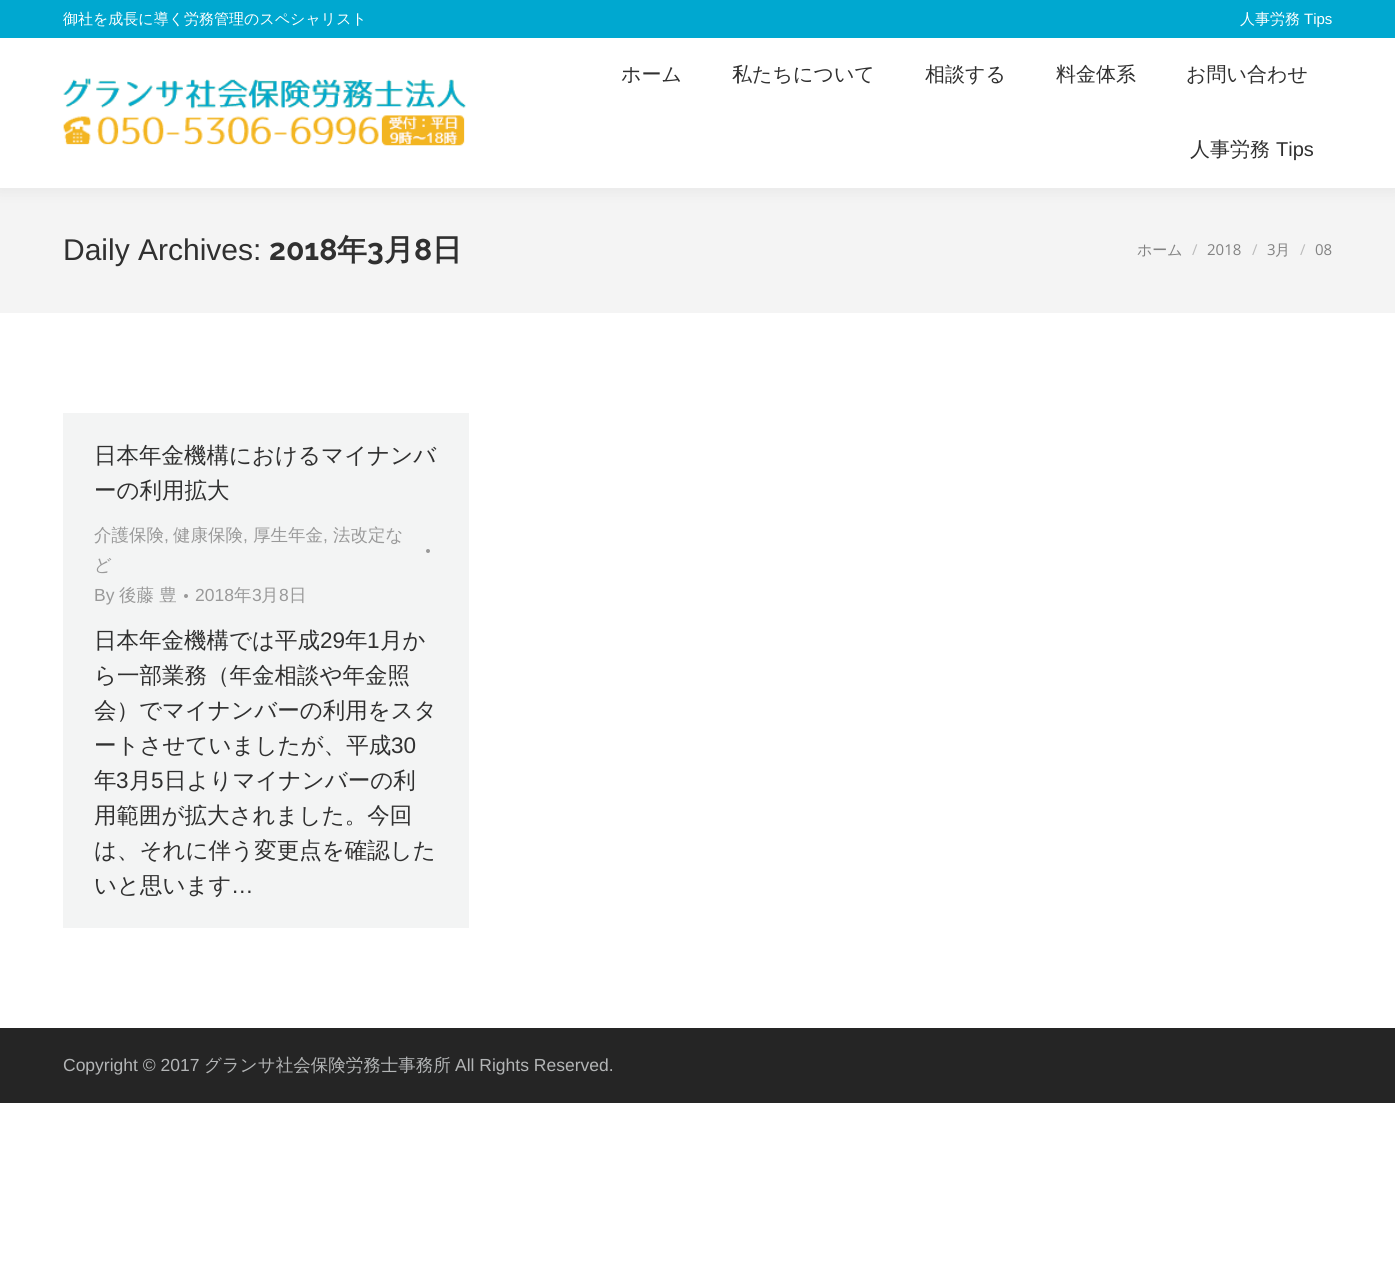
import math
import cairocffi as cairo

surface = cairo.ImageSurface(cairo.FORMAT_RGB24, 1395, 1276)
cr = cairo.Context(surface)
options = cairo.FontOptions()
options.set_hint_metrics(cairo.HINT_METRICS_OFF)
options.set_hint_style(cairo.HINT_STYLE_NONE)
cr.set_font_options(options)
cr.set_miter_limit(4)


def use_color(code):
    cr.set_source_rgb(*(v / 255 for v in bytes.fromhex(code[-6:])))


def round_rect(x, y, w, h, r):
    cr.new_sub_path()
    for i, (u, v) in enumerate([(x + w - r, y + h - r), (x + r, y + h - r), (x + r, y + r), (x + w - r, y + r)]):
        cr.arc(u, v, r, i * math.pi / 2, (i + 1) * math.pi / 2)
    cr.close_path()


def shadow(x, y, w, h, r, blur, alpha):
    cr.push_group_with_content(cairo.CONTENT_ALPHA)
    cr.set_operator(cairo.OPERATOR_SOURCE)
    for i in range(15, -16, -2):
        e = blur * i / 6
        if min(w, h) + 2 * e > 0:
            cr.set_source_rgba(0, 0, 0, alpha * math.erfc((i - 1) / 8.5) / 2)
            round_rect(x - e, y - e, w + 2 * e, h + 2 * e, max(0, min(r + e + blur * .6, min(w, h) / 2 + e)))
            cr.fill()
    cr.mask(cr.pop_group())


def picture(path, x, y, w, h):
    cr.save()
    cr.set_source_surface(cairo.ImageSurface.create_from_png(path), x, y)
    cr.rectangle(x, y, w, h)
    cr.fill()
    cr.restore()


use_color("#ffffff")
cr.paint()
use_color("#f4f4f4")
cr.rectangle(0, 188, 1395, 125)
cr.fill()
use_color("#000000")
shadow(-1, -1, 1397, 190, 0, 9.5, 0.07)
use_color("#ffffff")
cr.rectangle(0, 38, 1395, 150)
cr.fill()
use_color("#00a8d0")
cr.rectangle(0, 0, 1395, 38)
cr.fill()
cr.select_font_face("WenQuanYi Zen Hei Medium")
cr.set_font_size(15)
use_color("#ffffff")
cr.move_to(63, 24)
cr.show_text("御社を成長に導く労務管理のスペシャリスト")
cr.move_to(1240, 24)
cr.show_text("人事労務")
cr.select_font_face("Liberation Sans")
cr.move_to(1304, 24)
cr.show_text("Tips")
picture("img1.png", 63, 78, 403, 68)
cr.select_font_face("WenQuanYi Zen Hei Medium")
cr.set_font_size(20)
use_color("#303030")
cr.move_to(621, 81)
cr.show_text("ホーム")
cr.move_to(732, 81)
cr.show_text("私たちについて")
cr.move_to(925, 81)
cr.show_text("相談する")
cr.move_to(1056, 81)
cr.show_text("料金体系")
cr.move_to(1186, 81)
cr.show_text("お問い合わせ")
cr.move_to(1190, 156)
cr.show_text("人事労務")
cr.select_font_face("Liberation Sans")
cr.move_to(1276, 156)
cr.show_text("Tips")
cr.set_font_size(30)
cr.move_to(63, 260)
cr.show_text("Daily Archives:")
cr.select_font_face("Raleway", cairo.FONT_SLANT_NORMAL, cairo.FONT_WEIGHT_BOLD)
cr.move_to(269, 260)
cr.show_text("2018")
cr.select_font_face("WenQuanYi Zen Hei", cairo.FONT_SLANT_NORMAL, cairo.FONT_WEIGHT_BOLD)
cr.move_to(337, 260)
cr.show_text("年")
cr.select_font_face("Raleway", cairo.FONT_SLANT_NORMAL, cairo.FONT_WEIGHT_BOLD)
cr.move_to(367, 260)
cr.show_text("3")
cr.select_font_face("WenQuanYi Zen Hei", cairo.FONT_SLANT_NORMAL, cairo.FONT_WEIGHT_BOLD)
cr.move_to(384, 260)
cr.show_text("月")
cr.select_font_face("Raleway", cairo.FONT_SLANT_NORMAL, cairo.FONT_WEIGHT_BOLD)
cr.move_to(414, 260)
cr.show_text("8")
cr.select_font_face("WenQuanYi Zen Hei", cairo.FONT_SLANT_NORMAL, cairo.FONT_WEIGHT_BOLD)
cr.move_to(432, 260)
cr.show_text("日")
cr.select_font_face("WenQuanYi Zen Hei Medium")
cr.set_font_size(15)
use_color("#828282")
cr.move_to(1137, 255)
cr.show_text("ホーム")
cr.select_font_face("Open Sans")
use_color("#bbbbbb")
cr.move_to(1192, 255)
cr.show_text("/")
use_color("#828282")
cr.move_to(1207, 255)
cr.show_text("2018")
use_color("#bbbbbb")
cr.move_to(1252, 255)
cr.show_text("/")
use_color("#828282")
cr.move_to(1267, 255)
cr.show_text("3")
cr.select_font_face("WenQuanYi Zen Hei Medium")
cr.move_to(1275, 255)
cr.show_text("月")
cr.select_font_face("Open Sans")
use_color("#bbbbbb")
cr.move_to(1300, 255)
cr.show_text("/")
use_color("#828282")
cr.move_to(1315, 255)
cr.show_text("08")
use_color("#f3f4f4")
cr.rectangle(63, 413, 406, 515)
cr.fill()
cr.select_font_face("WenQuanYi Zen Hei Medium")
cr.set_font_size(22.5)
use_color("#303030")
cr.move_to(94, 463)
cr.show_text("日本年金機構におけるマイナンバ")
cr.move_to(94, 498)
cr.show_text("ーの利用拡大")
cr.set_font_size(17.5)
use_color("#999999")
cr.move_to(94, 541)
cr.show_text("介護保険")
cr.select_font_face("Liberation Sans")
cr.move_to(164, 541)
cr.show_text(",")
cr.select_font_face("WenQuanYi Zen Hei Medium")
cr.move_to(173, 541)
cr.show_text("健康保険")
cr.select_font_face("Liberation Sans")
cr.move_to(243, 541)
cr.show_text(",")
cr.select_font_face("WenQuanYi Zen Hei Medium")
cr.move_to(253, 541)
cr.show_text("厚生年金")
cr.select_font_face("Liberation Sans")
cr.move_to(323, 541)
cr.show_text(",")
cr.select_font_face("WenQuanYi Zen Hei Medium")
cr.move_to(333, 541)
cr.show_text("法改定な")
cr.new_path()
cr.arc(428, 551, 2, 0, 2 * math.pi)
cr.fill()
cr.move_to(94, 571)
cr.show_text("ど")
cr.select_font_face("Liberation Sans")
cr.move_to(94, 601)
cr.show_text("By")
cr.select_font_face("WenQuanYi Zen Hei Medium")
cr.move_to(119, 601)
cr.show_text("後藤 豊")
cr.new_path()
cr.arc(186, 596, 2, 0, 2 * math.pi)
cr.fill()
cr.select_font_face("Liberation Sans")
cr.move_to(195, 601)
cr.show_text("2018")
cr.select_font_face("WenQuanYi Zen Hei Medium")
cr.move_to(234, 601)
cr.show_text("年")
cr.select_font_face("Liberation Sans")
cr.move_to(252, 601)
cr.show_text("3")
cr.select_font_face("WenQuanYi Zen Hei Medium")
cr.move_to(261, 601)
cr.show_text("月")
cr.select_font_face("Liberation Sans")
cr.move_to(279, 601)
cr.show_text("8")
cr.select_font_face("WenQuanYi Zen Hei Medium")
cr.move_to(289, 601)
cr.show_text("日")
cr.set_font_size(22.5)
use_color("#303030")
cr.move_to(94, 648)
cr.show_text("日本年金機構では平成")
cr.select_font_face("Liberation Sans")
cr.move_to(320, 648)
cr.show_text("29")
cr.select_font_face("WenQuanYi Zen Hei Medium")
cr.move_to(345, 648)
cr.show_text("年")
cr.select_font_face("Liberation Sans")
cr.move_to(367, 648)
cr.show_text("1")
cr.select_font_face("WenQuanYi Zen Hei Medium")
cr.move_to(380, 648)
cr.show_text("月か")
cr.move_to(94, 683)
cr.show_text("ら一部業務（年金相談や年金照")
cr.move_to(94, 718)
cr.show_text("会）でマイナンバーの利用をスタ")
cr.move_to(94, 753)
cr.show_text("ートさせていましたが、平成")
cr.select_font_face("Liberation Sans")
cr.move_to(391, 753)
cr.show_text("30")
cr.select_font_face("WenQuanYi Zen Hei Medium")
cr.move_to(94, 788)
cr.show_text("年")
cr.select_font_face("Liberation Sans")
cr.move_to(116, 788)
cr.show_text("3")
cr.select_font_face("WenQuanYi Zen Hei Medium")
cr.move_to(129, 788)
cr.show_text("月")
cr.select_font_face("Liberation Sans")
cr.move_to(151, 788)
cr.show_text("5")
cr.select_font_face("WenQuanYi Zen Hei Medium")
cr.move_to(164, 788)
cr.show_text("日よりマイナンバーの利")
cr.move_to(94, 823)
cr.show_text("用範囲が拡大されました。今回")
cr.move_to(94, 858)
cr.show_text("は、それに伴う変更点を確認した")
cr.move_to(94, 893)
cr.show_text("いと思います")
cr.select_font_face("Liberation Sans")
cr.move_to(231, 893)
cr.show_text("…")
use_color("#252525")
cr.rectangle(0, 1028, 1395, 75)
cr.fill()
cr.set_font_size(17.5)
use_color("#b3b5b6")
cr.move_to(63, 1071)
cr.show_text("Copyright © 2017")
cr.select_font_face("WenQuanYi Zen Hei Medium")
cr.move_to(204, 1071)
cr.show_text("グランサ社会保険労務士事務所")
cr.select_font_face("Liberation Sans")
cr.move_to(455, 1071)
cr.show_text("All Rights Reserved.")
surface.write_to_png("result.png")
